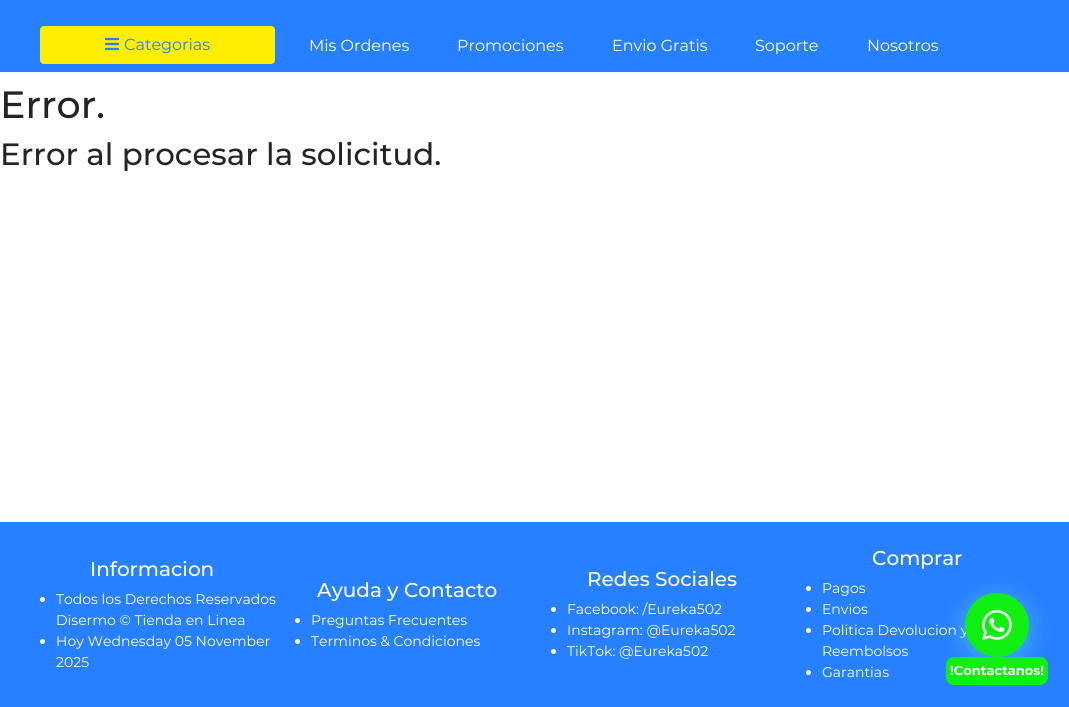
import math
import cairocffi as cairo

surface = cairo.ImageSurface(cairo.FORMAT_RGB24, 1069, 707)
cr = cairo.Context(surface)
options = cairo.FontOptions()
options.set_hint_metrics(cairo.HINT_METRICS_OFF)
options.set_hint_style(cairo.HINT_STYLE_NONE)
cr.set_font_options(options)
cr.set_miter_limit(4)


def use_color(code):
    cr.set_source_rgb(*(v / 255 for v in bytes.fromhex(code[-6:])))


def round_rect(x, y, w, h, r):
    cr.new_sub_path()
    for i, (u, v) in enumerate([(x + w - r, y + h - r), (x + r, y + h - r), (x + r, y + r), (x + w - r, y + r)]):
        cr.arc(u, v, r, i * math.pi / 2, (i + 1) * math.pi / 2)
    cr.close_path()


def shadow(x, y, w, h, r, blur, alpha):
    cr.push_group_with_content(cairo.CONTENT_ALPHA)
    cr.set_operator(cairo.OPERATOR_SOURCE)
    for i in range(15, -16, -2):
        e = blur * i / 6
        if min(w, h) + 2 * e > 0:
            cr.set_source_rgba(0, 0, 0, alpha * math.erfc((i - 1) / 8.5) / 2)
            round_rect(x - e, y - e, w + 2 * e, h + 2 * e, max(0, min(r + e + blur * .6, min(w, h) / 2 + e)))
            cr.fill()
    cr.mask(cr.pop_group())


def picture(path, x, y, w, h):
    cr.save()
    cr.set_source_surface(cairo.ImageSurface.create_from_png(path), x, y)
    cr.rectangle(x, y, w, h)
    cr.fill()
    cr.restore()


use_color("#ffffff")
cr.paint()
use_color("#2680ff")
cr.rectangle(0, 0, 1069, 72)
cr.fill()
use_color("#feee00")
round_rect(40, 26, 235, 38, 4)
cr.fill()
picture("img1.png", 105, 37, 14, 14)
cr.select_font_face("Montserrat")
cr.set_font_size(16)
use_color("#2680ff")
cr.move_to(124, 50)
cr.show_text("Categorias")
use_color("#ffffff")
cr.move_to(309, 51)
cr.show_text("Mis Ordenes")
cr.move_to(457, 51)
cr.show_text("Promociones")
cr.move_to(612, 51)
cr.show_text("Envio Gratis")
cr.move_to(755, 51)
cr.show_text("Soporte")
cr.move_to(867, 51)
cr.show_text("Nosotros")
cr.select_font_face("Montserrat Medium")
cr.set_font_size(38)
use_color("#212529")
cr.move_to(0, 118)
cr.show_text("Error.")
cr.set_font_size(30.8)
cr.move_to(0, 165)
cr.show_text("Error al procesar la solicitud.")
use_color("#2680ff")
cr.rectangle(0, 522, 1069, 185)
cr.fill()
cr.set_font_size(20)
use_color("#ffffff")
cr.move_to(90, 576)
cr.show_text("Informacion")
cr.new_path()
cr.arc(42.5, 599.5, 2.5, 0, 2 * math.pi)
cr.fill()
cr.select_font_face("Montserrat")
cr.set_font_size(14)
cr.move_to(56, 604)
cr.show_text("Todos los Derechos Reservados")
cr.move_to(56, 625)
cr.show_text("Disermo © Tienda en Linea")
cr.new_path()
cr.arc(42.5, 641.5, 2.5, 0, 2 * math.pi)
cr.fill()
cr.move_to(56, 646)
cr.show_text("Hoy Wednesday 05 November")
cr.move_to(56, 667)
cr.show_text("2025")
cr.select_font_face("Montserrat Medium")
cr.set_font_size(20)
cr.move_to(317, 597)
cr.show_text("Ayuda y Contacto")
cr.new_path()
cr.arc(297.5, 620.5, 2.5, 0, 2 * math.pi)
cr.fill()
cr.select_font_face("Montserrat")
cr.set_font_size(14)
cr.move_to(311, 625)
cr.show_text("Preguntas Frecuentes")
cr.new_path()
cr.arc(297.5, 641.5, 2.5, 0, 2 * math.pi)
cr.fill()
cr.move_to(311, 646)
cr.show_text("Terminos & Condiciones")
cr.select_font_face("Montserrat Medium")
cr.set_font_size(20)
cr.move_to(587, 586)
cr.show_text("Redes Sociales")
cr.new_path()
cr.arc(553.5, 609.5, 2.5, 0, 2 * math.pi)
cr.fill()
cr.select_font_face("Montserrat")
cr.set_font_size(14)
cr.move_to(567, 614)
cr.show_text("Facebook: /Eureka502")
cr.new_path()
cr.arc(553.5, 630.5, 2.5, 0, 2 * math.pi)
cr.fill()
cr.move_to(567, 635)
cr.show_text("Instagram: @Eureka502")
cr.new_path()
cr.arc(553.5, 651.5, 2.5, 0, 2 * math.pi)
cr.fill()
cr.move_to(567, 656)
cr.show_text("TikTok: @Eureka502")
cr.select_font_face("Montserrat Medium")
cr.set_font_size(20)
cr.move_to(872, 565)
cr.show_text("Comprar")
cr.new_path()
cr.arc(808.5, 588.5, 2.5, 0, 2 * math.pi)
cr.fill()
cr.select_font_face("Montserrat")
cr.set_font_size(14)
cr.move_to(822, 593)
cr.show_text("Pagos")
cr.new_path()
cr.arc(808.5, 609.5, 2.5, 0, 2 * math.pi)
cr.fill()
cr.move_to(822, 614)
cr.show_text("Envios")
cr.new_path()
cr.arc(808.5, 630.5, 2.5, 0, 2 * math.pi)
cr.fill()
cr.move_to(822, 635)
cr.show_text("Politica Devolucion y")
cr.move_to(822, 656)
cr.show_text("Reembolsos")
cr.new_path()
cr.arc(808.5, 672.5, 2.5, 0, 2 * math.pi)
cr.fill()
cr.move_to(822, 677)
cr.show_text("Garantias")
use_color("#61dafa")
shadow(965, 598, 64, 64, 32, 12.5, 0.5)
use_color("#0ff012")
cr.arc(997, 625, 32, 0, 2 * math.pi)
cr.fill()
picture("img2.png", 982, 610, 30, 30)
round_rect(946, 657, 102, 28, 8)
cr.fill()
cr.select_font_face("Montserrat", cairo.FONT_SLANT_NORMAL, cairo.FONT_WEIGHT_BOLD)
cr.set_font_size(13)
use_color("#ffffff")
cr.move_to(950, 675)
cr.show_text("!Contactanos!")
surface.write_to_png("result.png")
